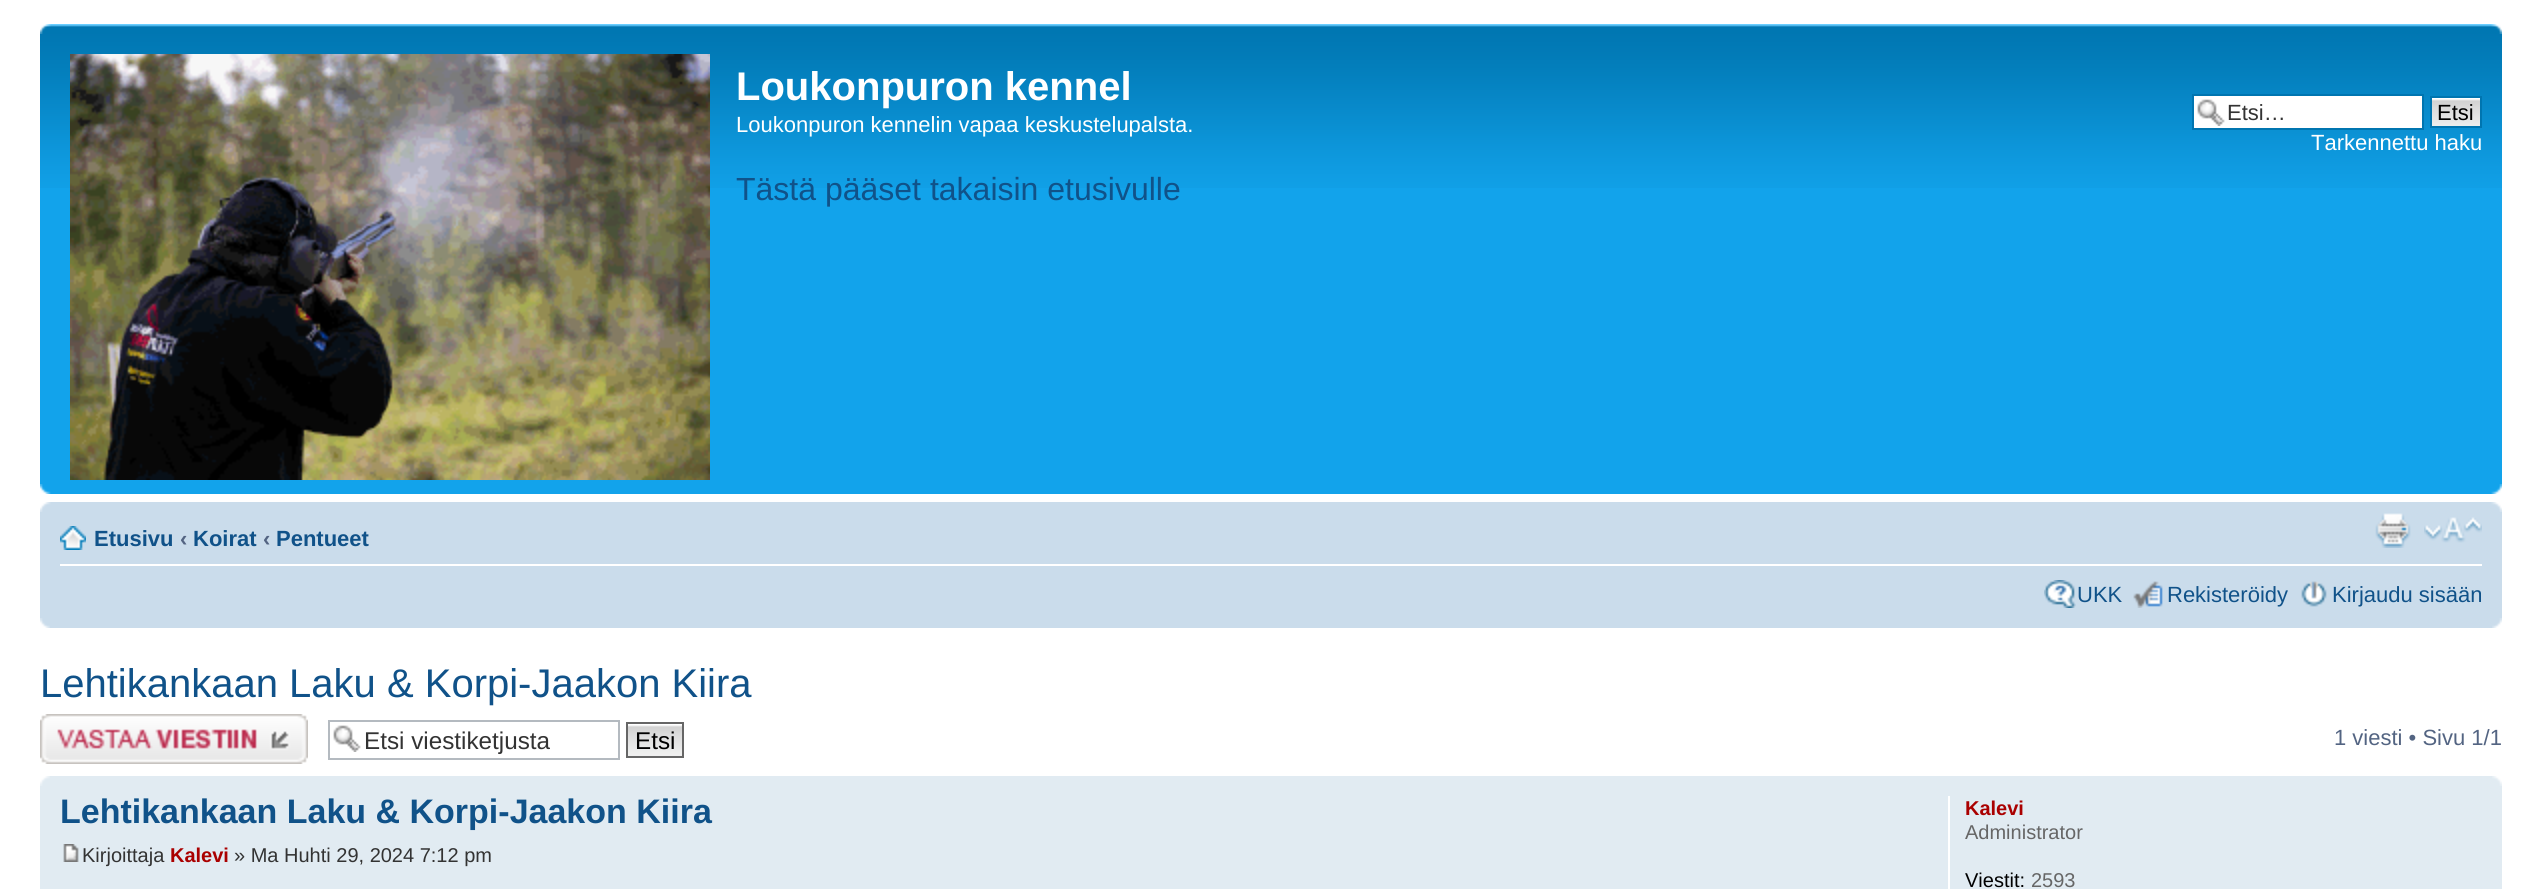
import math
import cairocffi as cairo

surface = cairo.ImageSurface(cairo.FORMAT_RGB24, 2541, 889)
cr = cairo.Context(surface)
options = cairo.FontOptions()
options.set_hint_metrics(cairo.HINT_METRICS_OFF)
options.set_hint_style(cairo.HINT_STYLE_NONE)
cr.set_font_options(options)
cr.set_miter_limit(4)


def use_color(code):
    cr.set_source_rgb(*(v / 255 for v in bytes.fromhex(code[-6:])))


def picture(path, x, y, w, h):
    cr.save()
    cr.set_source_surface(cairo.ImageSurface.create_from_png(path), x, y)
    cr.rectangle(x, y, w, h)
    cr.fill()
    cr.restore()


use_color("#ffffff")
cr.paint()
use_color("#12a3eb")
cr.rectangle(40, 188, 2462, 306)
cr.fill()
picture("img1.png", 40, 24, 2462, 164)
picture("img2.png", 40, 24, 11, 10)
picture("img3.png", 2491, 24, 11, 10)
picture("img4.png", 70, 54, 640, 426)
cr.select_font_face("Liberation Sans", cairo.FONT_SLANT_NORMAL, cairo.FONT_WEIGHT_BOLD)
cr.set_font_size(40)
use_color("#ffffff")
cr.move_to(736, 100)
cr.show_text("Loukonpuron kennel")
cr.select_font_face("Liberation Sans")
cr.set_font_size(22)
cr.move_to(736, 132)
cr.show_text("Loukonpuron kennelin vapaa keskustelupalsta.")
cr.set_font_size(32)
use_color("#105289")
cr.move_to(736, 200)
cr.show_text("Tästä pääset takaisin etusivulle")
use_color("#ffffff")
cr.rectangle(2194, 96, 228, 32)
cr.fill()
picture("img5.png", 2197, 99, 28, 27)
cr.rectangle(2193, 95, 230, 34)
use_color("#0075b0")
cr.stroke()
cr.set_font_size(22)
use_color("#333333")
cr.move_to(2227, 120)
cr.show_text("Etsi…")
picture("img6.png", 2432, 98, 48, 28)
cr.rectangle(2431, 97, 50, 30)
use_color("#0075b0")
cr.stroke()
use_color("#000000")
cr.move_to(2437, 120)
cr.show_text("Etsi")
use_color("#ffffff")
cr.move_to(2311, 150)
cr.show_text("Tarkennettu haku")
picture("img7.png", 40, 484, 11, 10)
picture("img8.png", 2491, 484, 11, 10)
use_color("#cadceb")
cr.rectangle(40, 502, 2462, 126)
cr.fill()
picture("img9.png", 40, 502, 11, 10)
picture("img10.png", 2491, 502, 11, 10)
use_color("#ffffff")
cr.rectangle(60, 564, 2422, 2)
cr.fill()
picture("img11.png", 60, 526, 26, 24)
cr.select_font_face("Liberation Sans", cairo.FONT_SLANT_NORMAL, cairo.FONT_WEIGHT_BOLD)
use_color("#105289")
cr.move_to(94, 546)
cr.show_text("Etusivu")
use_color("#536482")
cr.move_to(180, 546)
cr.show_text("‹")
use_color("#105289")
cr.move_to(193, 546)
cr.show_text("Koirat")
use_color("#536482")
cr.move_to(263, 546)
cr.show_text("‹")
use_color("#105289")
cr.move_to(276, 546)
cr.show_text("Pentueet")
picture("img12.png", 2375, 513, 36, 35)
picture("img13.png", 2424, 517, 58, 26)
picture("img14.png", 2044, 580, 32, 28)
cr.select_font_face("Liberation Sans")
cr.move_to(2077, 602)
cr.show_text("UKK")
picture("img15.png", 2133, 581, 30, 27)
cr.move_to(2167, 602)
cr.show_text("Rekisteröidy")
picture("img16.png", 2301, 581, 26, 26)
cr.move_to(2332, 602)
cr.show_text("Kirjaudu sisään")
picture("img17.png", 40, 618, 10, 10)
picture("img18.png", 2492, 618, 10, 10)
cr.set_font_size(40)
cr.move_to(40, 697)
cr.show_text("Lehtikankaan Laku & Korpi-Jaakon Kiira")
picture("img19.png", 40, 714, 268, 50)
picture("img5.png", 333, 725, 28, 27)
cr.rectangle(329, 721, 290, 38)
use_color("#b4bac0")
cr.stroke()
cr.set_font_size(24.25)
use_color("#333333")
cr.move_to(364, 749)
cr.show_text("Etsi viestiketjusta")
picture("img20.png", 628, 724, 54, 32)
cr.rectangle(627, 723, 56, 34)
use_color("#666666")
cr.stroke()
use_color("#000000")
cr.move_to(635, 749)
cr.show_text("Etsi")
cr.set_font_size(22)
use_color("#536482")
cr.move_to(2334, 745)
cr.show_text("1 viesti • Sivu 1/1")
use_color("#e1ebf2")
cr.rectangle(40, 776, 2462, 113)
cr.fill()
picture("img21.png", 40, 776, 10, 10)
picture("img22.png", 2492, 776, 10, 10)
cr.select_font_face("Liberation Sans", cairo.FONT_SLANT_NORMAL, cairo.FONT_WEIGHT_BOLD)
cr.set_font_size(34)
use_color("#105289")
cr.move_to(60, 823)
cr.show_text("Lehtikankaan Laku & Korpi-Jaakon Kiira")
picture("img23.png", 63, 844, 16, 18)
cr.select_font_face("Liberation Sans")
cr.set_font_size(20)
use_color("#333333")
cr.move_to(82, 862)
cr.show_text("Kirjoittaja")
cr.select_font_face("Liberation Sans", cairo.FONT_SLANT_NORMAL, cairo.FONT_WEIGHT_BOLD)
use_color("#aa0000")
cr.move_to(170, 862)
cr.show_text("Kalevi")
cr.select_font_face("Liberation Sans")
use_color("#333333")
cr.move_to(234, 862)
cr.show_text("» Ma Huhti 29, 2024 7:12 pm")
use_color("#ffffff")
cr.rectangle(1948, 796, 2, 93)
cr.fill()
cr.select_font_face("Liberation Sans", cairo.FONT_SLANT_NORMAL, cairo.FONT_WEIGHT_BOLD)
use_color("#aa0000")
cr.move_to(1965, 815)
cr.show_text("Kalevi")
cr.select_font_face("Liberation Sans")
use_color("#666666")
cr.move_to(1965, 839)
cr.show_text("Administrator")
use_color("#000000")
cr.move_to(1965, 887)
cr.show_text("Viestit:")
use_color("#666666")
cr.move_to(2031, 887)
cr.show_text("2593")
surface.write_to_png("result.png")
